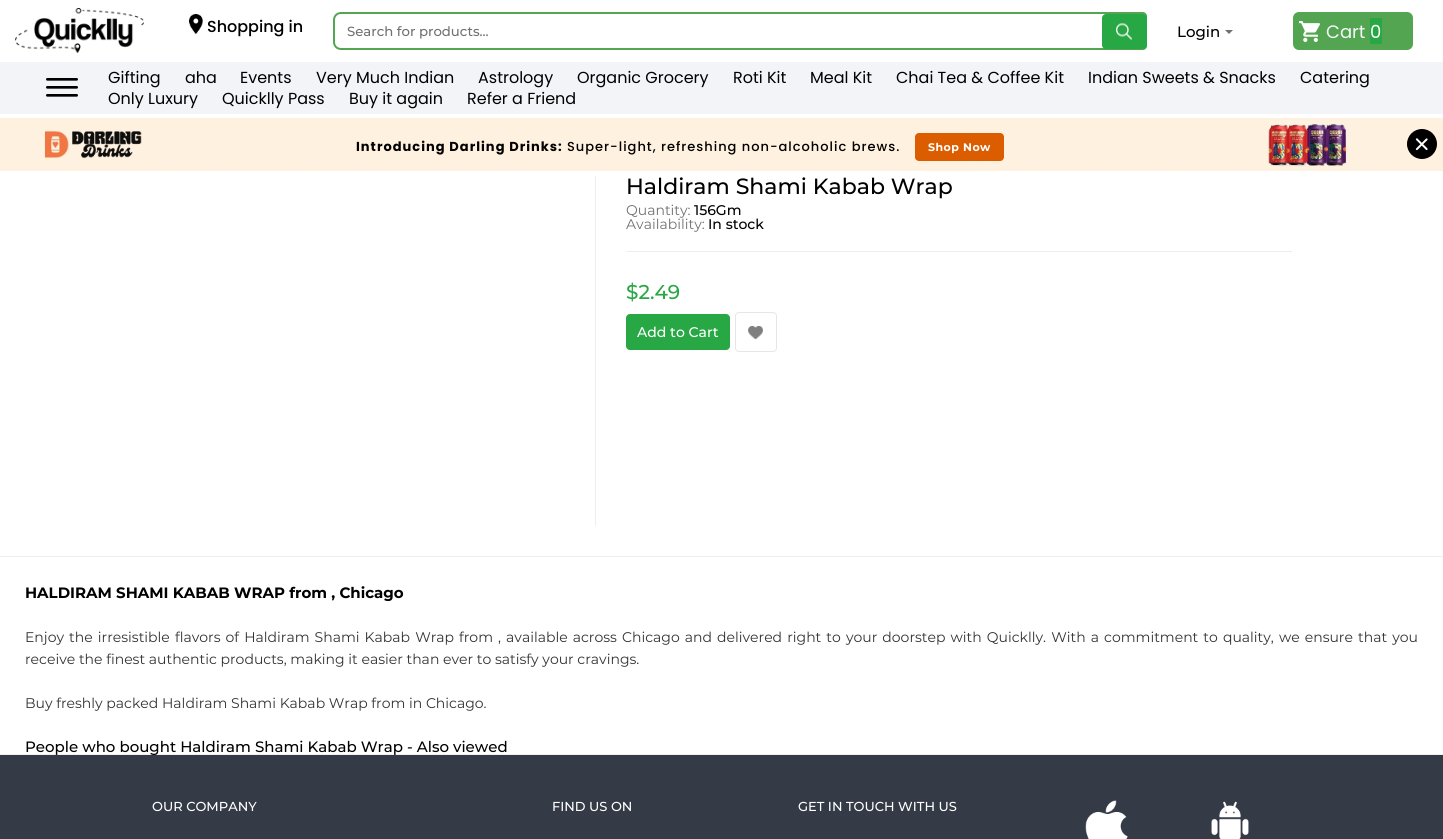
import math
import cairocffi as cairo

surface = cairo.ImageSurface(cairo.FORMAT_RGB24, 1443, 839)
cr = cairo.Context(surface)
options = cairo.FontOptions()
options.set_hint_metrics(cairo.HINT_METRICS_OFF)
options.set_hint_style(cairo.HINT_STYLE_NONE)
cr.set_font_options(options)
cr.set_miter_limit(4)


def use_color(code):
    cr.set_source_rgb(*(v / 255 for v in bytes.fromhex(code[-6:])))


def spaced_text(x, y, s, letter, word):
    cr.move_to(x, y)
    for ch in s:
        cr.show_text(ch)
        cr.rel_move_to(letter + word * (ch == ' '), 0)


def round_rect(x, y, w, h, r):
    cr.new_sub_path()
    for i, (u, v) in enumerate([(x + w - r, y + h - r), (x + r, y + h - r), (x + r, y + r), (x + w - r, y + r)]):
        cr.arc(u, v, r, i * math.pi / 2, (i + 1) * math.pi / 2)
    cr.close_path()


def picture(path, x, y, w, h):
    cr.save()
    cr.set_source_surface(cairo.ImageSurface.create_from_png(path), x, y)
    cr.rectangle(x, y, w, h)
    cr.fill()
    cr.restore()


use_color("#ffffff")
cr.paint()
picture("img1.png", 15, 8, 129, 45)
picture("img2.png", 189, 14, 14, 20)
cr.select_font_face("Poppins Medium")
cr.set_font_size(16)
use_color("#000000")
cr.move_to(207, 32)
cr.show_text("Shopping in")
cr.new_path()
cr.move_to(341, 13)
cr.line_to(1143, 13)
cr.curve_to(1144.5, 13, 1146, 14.5, 1146, 16)
cr.line_to(1146, 46)
cr.curve_to(1146, 47.5, 1144.5, 49, 1143, 49)
cr.line_to(341, 49)
cr.curve_to(337, 49, 334, 46, 334, 42)
cr.line_to(334, 20)
cr.curve_to(334, 16, 337, 13, 341, 13)
cr.close_path()
use_color("#53a552")
cr.stroke()
cr.select_font_face("Montserrat Medium")
cr.set_font_size(13.25)
use_color("#717171")
cr.move_to(347, 36)
cr.show_text("Search for products...")
use_color("#28a745")
round_rect(1102, 14, 45, 35, 4)
cr.fill()
picture("img3.png", 1116, 23, 16, 17)
picture("img4.png", 1225, 30, 8, 4)
cr.set_font_size(15)
use_color("#000000")
cr.move_to(1177, 37)
cr.show_text("Login")
use_color("#53a551")
round_rect(1293, 12, 120, 38, 6)
cr.fill()
picture("img5.png", 1299, 21, 21, 21)
cr.select_font_face("Poppins")
cr.set_font_size(18)
use_color("#f7f7fa")
cr.move_to(1326, 38)
cr.show_text("Cart")
use_color("#28a745")
cr.rectangle(1370, 18, 12, 26)
cr.fill()
use_color("#ffffff")
cr.move_to(1370, 38)
cr.show_text("0")
use_color("#f2f4f8")
cr.rectangle(0, 62, 1443, 52)
cr.fill()
picture("img6.png", 46, 78, 32, 19)
cr.set_font_size(16)
use_color("#000000")
cr.move_to(108, 83)
cr.show_text("Gifting")
cr.move_to(185, 83)
cr.show_text("aha")
cr.move_to(240, 83)
cr.show_text("Events")
cr.move_to(316, 83)
cr.show_text("Very Much Indian")
cr.move_to(478, 83)
cr.show_text("Astrology")
cr.move_to(577, 83)
cr.show_text("Organic Grocery")
cr.move_to(733, 83)
cr.show_text("Roti Kit")
cr.move_to(810, 83)
cr.show_text("Meal Kit")
cr.move_to(896, 83)
cr.show_text("Chai Tea & Coffee Kit")
cr.move_to(1088, 83)
cr.show_text("Indian Sweets & Snacks")
cr.move_to(1300, 83)
cr.show_text("Catering")
cr.move_to(108, 104)
cr.show_text("Only Luxury")
cr.move_to(222, 104)
cr.show_text("Quicklly Pass")
cr.move_to(349, 104)
cr.show_text("Buy it again")
cr.move_to(467, 104)
cr.show_text("Refer a Friend")
picture("img7.png", 0, 118, 1443, 53)
cr.select_font_face("Poppins", cairo.FONT_SLANT_NORMAL, cairo.FONT_WEIGHT_BOLD)
cr.set_font_size(13)
spaced_text(356, 151, "Introducing Darling Drinks:", 1, 0)
cr.select_font_face("Poppins Medium")
spaced_text(567, 151, "Super-light, refreshing non-alcoholic brews.", 1, 0)
use_color("#db5d00")
round_rect(915, 133, 89, 28, 4)
cr.fill()
cr.select_font_face("Montserrat", cairo.FONT_SLANT_NORMAL, cairo.FONT_WEIGHT_BOLD)
cr.set_font_size(11)
use_color("#ffffff")
spaced_text(928, 151, "Shop Now", 0.5, 0)
picture("img8.png", 1407, 129, 30, 30)
use_color("#eeeeee")
cr.rectangle(0, 556, 1443, 1)
cr.fill()
cr.rectangle(595, 176, 1, 350)
cr.fill()
cr.select_font_face("Montserrat Medium")
cr.set_font_size(22)
use_color("#000000")
cr.move_to(626, 194)
cr.show_text("Haldiram Shami Kabab Wrap")
cr.select_font_face("Montserrat")
cr.set_font_size(14)
use_color("#717171")
cr.move_to(626, 215)
cr.show_text("Quantity:")
cr.select_font_face("Montserrat Medium")
use_color("#000000")
cr.move_to(694, 215)
cr.show_text("156Gm")
use_color("#eeeeee")
cr.rectangle(626, 251, 666, 1)
cr.fill()
cr.select_font_face("Montserrat")
use_color("#717171")
cr.move_to(626, 229)
cr.show_text("Availability:")
cr.select_font_face("Montserrat Medium")
use_color("#000000")
cr.move_to(708, 229)
cr.show_text("In stock")
cr.set_font_size(20)
use_color("#28a745")
cr.move_to(626, 299)
cr.show_text("$2.49")
round_rect(626.5, 314.5, 103, 35, 3.5)
cr.fill_preserve()
cr.set_line_width(1)
cr.stroke()
cr.set_font_size(14)
use_color("#ffffff")
cr.move_to(637, 337)
cr.show_text("Add to Cart")
picture("img9.png", 748, 325, 15, 15)
round_rect(735.5, 312.5, 41, 39, 3.5)
use_color("#e6e6e6")
cr.stroke()
cr.select_font_face("Montserrat", cairo.FONT_SLANT_NORMAL, cairo.FONT_WEIGHT_BOLD)
cr.set_font_size(15)
use_color("#000000")
cr.move_to(25, 598)
cr.show_text("HALDIRAM SHAMI KABAB WRAP from , Chicago")
cr.select_font_face("Montserrat")
cr.set_font_size(14)
use_color("#333333")
spaced_text(25, 642, "Enjoy the irresistible flavors of Haldiram Shami Kabab Wrap", 0, 1.4)
cr.move_to(459, 642)
cr.show_text("from")
spaced_text(498, 642, ", available across", 0, 1.4)
spaced_text(622, 642, "Chicago and delivered right to your doorstep with Quicklly. With a commitment to quality, we ensure that you", 0, 1.4)
cr.move_to(25, 664)
cr.show_text("receive the finest authentic products, making it easier than ever to satisfy your cravings.")
cr.move_to(25, 708)
cr.show_text("Buy freshly packed Haldiram Shami Kabab Wrap from in Chicago.")
use_color("#eeeeee")
cr.rectangle(0, 754, 1443, 1)
cr.fill()
cr.select_font_face("Montserrat Medium")
cr.set_font_size(15)
use_color("#000000")
cr.move_to(25, 752)
cr.show_text("People who bought Haldiram Shami Kabab Wrap - Also viewed")
use_color("#343a46")
cr.rectangle(0, 755, 1443, 84)
cr.fill()
cr.set_font_size(13)
use_color("#ffffff")
cr.move_to(152, 811)
cr.show_text("OUR COMPANY")
cr.move_to(552, 811)
cr.show_text("FIND US ON")
cr.move_to(798, 811)
cr.show_text("GET IN TOUCH WITH US")
picture("img10.png", 1085, 800, 43, 39)
picture("img11.png", 1211, 801, 38, 38)
surface.write_to_png("result.png")
